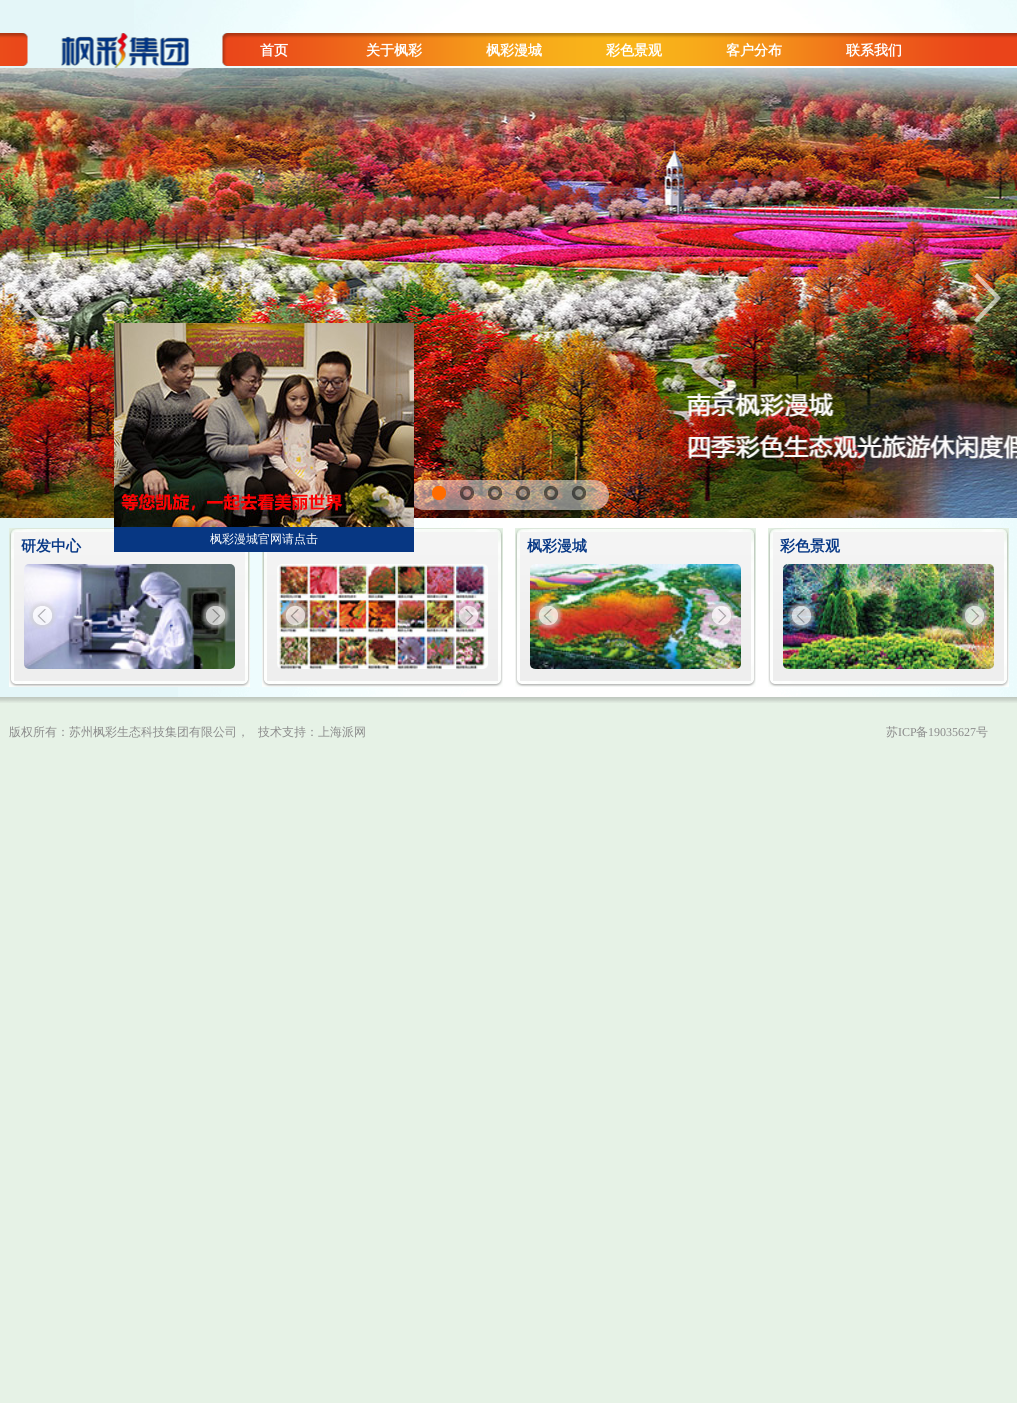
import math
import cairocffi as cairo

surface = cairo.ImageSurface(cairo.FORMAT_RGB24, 1017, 1403)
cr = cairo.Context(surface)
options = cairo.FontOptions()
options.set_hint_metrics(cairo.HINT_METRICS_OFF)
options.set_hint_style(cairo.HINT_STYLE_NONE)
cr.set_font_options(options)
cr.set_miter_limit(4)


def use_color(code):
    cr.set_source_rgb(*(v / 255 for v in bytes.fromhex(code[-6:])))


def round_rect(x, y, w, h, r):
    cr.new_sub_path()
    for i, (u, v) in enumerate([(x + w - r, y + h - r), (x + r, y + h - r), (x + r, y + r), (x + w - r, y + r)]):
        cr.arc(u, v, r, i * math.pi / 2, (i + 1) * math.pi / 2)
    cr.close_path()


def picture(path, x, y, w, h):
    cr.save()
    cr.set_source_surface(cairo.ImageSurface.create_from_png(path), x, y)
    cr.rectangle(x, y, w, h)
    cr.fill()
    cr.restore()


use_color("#e6f2e6")
cr.paint()
use_color("#e4f6f8")
cr.rectangle(0, 0, 134, 68)
cr.fill()
picture("img1.png", 134, 0, 883, 68)
picture("img2.png", 0, 33, 1017, 35)
cr.select_font_face("WenQuanYi Zen Hei", cairo.FONT_SLANT_NORMAL, cairo.FONT_WEIGHT_BOLD)
cr.set_font_size(14)
use_color("#ffffff")
cr.move_to(260, 55)
cr.show_text("首页")
cr.move_to(366, 55)
cr.show_text("关于枫彩")
cr.move_to(486, 55)
cr.show_text("枫彩漫城")
cr.move_to(606, 55)
cr.show_text("彩色景观")
cr.move_to(726, 55)
cr.show_text("客户分布")
cr.move_to(846, 55)
cr.show_text("联系我们")
picture("img3.png", 0, 68, 1017, 450)
picture("img4.png", 17, 273, 27, 50)
picture("img5.png", 974, 273, 27, 50)
cr.set_source_rgba(1, 1, 1, 0.5)
round_rect(409, 480, 200, 30, 15)
cr.fill()
picture("img6.png", 432, 486, 14, 14)
picture("img7.png", 460, 486, 14, 14)
picture("img8.png", 488, 486, 14, 14)
picture("img9.png", 516, 486, 14, 14)
picture("img10.png", 544, 486, 14, 14)
picture("img11.png", 572, 486, 14, 14)
use_color("#e4f6f8")
cr.rectangle(0, 518, 178, 179)
cr.fill()
picture("img13.png", 178, 518, 839, 179)
picture("img12.png", 114, 323, 300, 204)
picture("img14.png", 9, 528, 241, 159)
picture("img14.png", 262, 528, 241, 159)
use_color("#073783")
cr.rectangle(114, 527, 300, 25)
cr.fill()
cr.select_font_face("WenQuanYi Zen Hei Medium")
cr.set_font_size(12)
use_color("#ffffff")
cr.move_to(210, 543)
cr.show_text("枫彩漫城官网请点击")
cr.select_font_face("WenQuanYi Zen Hei", cairo.FONT_SLANT_NORMAL, cairo.FONT_WEIGHT_BOLD)
cr.set_font_size(15)
use_color("#073886")
cr.move_to(21, 551)
cr.show_text("研发中心")
picture("img15.png", 24, 564, 211, 105)
picture("img16.png", 29, 601, 28, 29)
picture("img17.png", 201, 601, 29, 29)
picture("img18.png", 277, 564, 211, 105)
picture("img19.png", 282, 601, 28, 29)
picture("img20.png", 455, 601, 28, 29)
picture("img14.png", 515, 528, 241, 159)
cr.move_to(527, 551)
cr.show_text("枫彩漫城")
picture("img21.png", 530, 564, 211, 105)
picture("img22.png", 535, 601, 28, 29)
picture("img23.png", 707, 601, 29, 29)
picture("img14.png", 768, 528, 241, 159)
cr.move_to(780, 551)
cr.show_text("彩色景观")
picture("img24.png", 783, 564, 211, 105)
picture("img25.png", 788, 601, 28, 29)
picture("img26.png", 960, 601, 29, 29)
picture("img27.png", 0, 697, 1017, 6)
cr.select_font_face("WenQuanYi Zen Hei Medium")
cr.set_font_size(12)
use_color("#8b8b8b")
cr.move_to(9, 736)
cr.show_text("版权所有：苏州枫彩生态科技集团有限公司，")
cr.move_to(258, 736)
cr.show_text("技术支持：上海派网")
cr.move_to(886, 736)
cr.show_text("苏")
cr.select_font_face("Liberation Serif")
cr.move_to(898, 736)
cr.show_text("ICP")
cr.select_font_face("WenQuanYi Zen Hei Medium")
cr.move_to(916, 736)
cr.show_text("备")
cr.select_font_face("Liberation Serif")
cr.move_to(928, 736)
cr.show_text("19035627")
cr.select_font_face("WenQuanYi Zen Hei Medium")
cr.move_to(976, 736)
cr.show_text("号")
surface.write_to_png("result.png")
